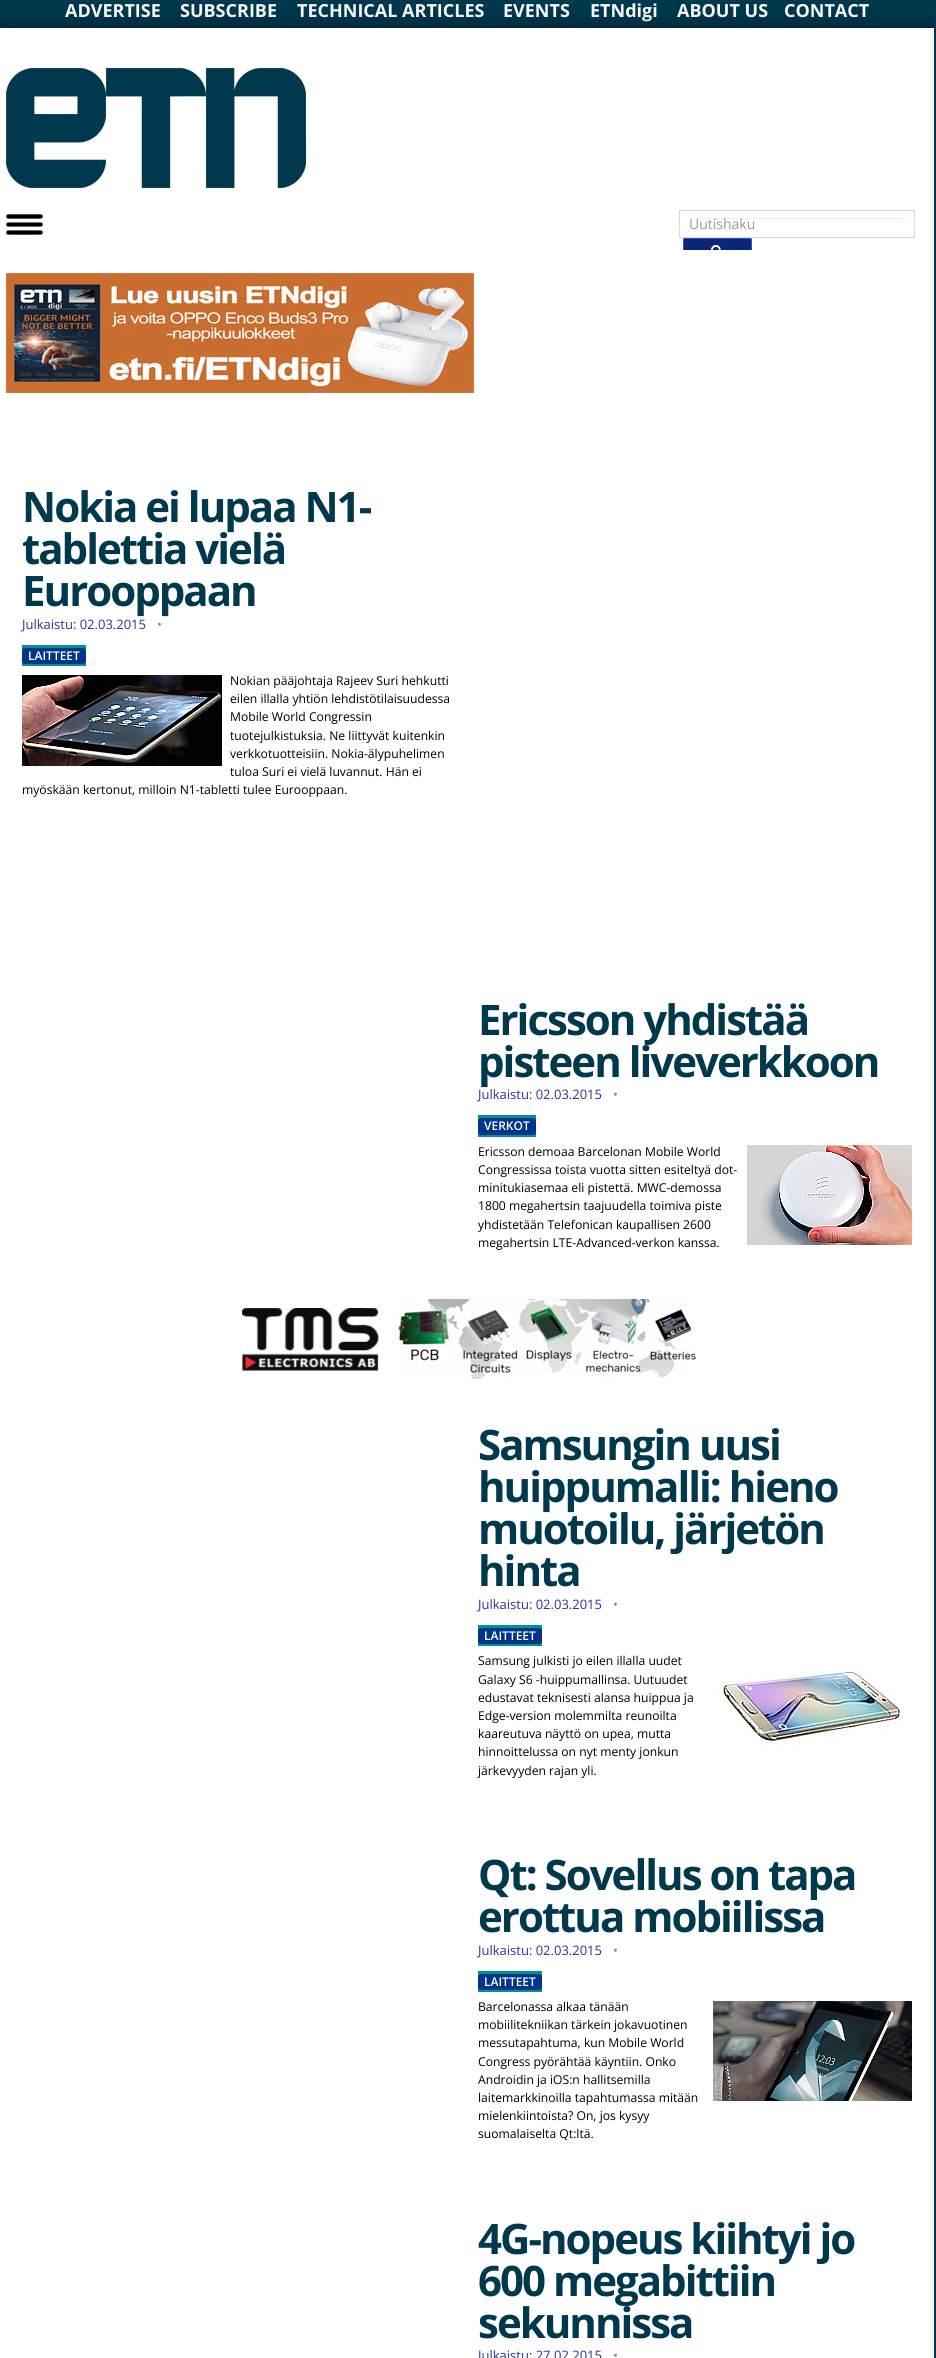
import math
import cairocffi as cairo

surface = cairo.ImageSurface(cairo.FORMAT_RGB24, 936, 2358)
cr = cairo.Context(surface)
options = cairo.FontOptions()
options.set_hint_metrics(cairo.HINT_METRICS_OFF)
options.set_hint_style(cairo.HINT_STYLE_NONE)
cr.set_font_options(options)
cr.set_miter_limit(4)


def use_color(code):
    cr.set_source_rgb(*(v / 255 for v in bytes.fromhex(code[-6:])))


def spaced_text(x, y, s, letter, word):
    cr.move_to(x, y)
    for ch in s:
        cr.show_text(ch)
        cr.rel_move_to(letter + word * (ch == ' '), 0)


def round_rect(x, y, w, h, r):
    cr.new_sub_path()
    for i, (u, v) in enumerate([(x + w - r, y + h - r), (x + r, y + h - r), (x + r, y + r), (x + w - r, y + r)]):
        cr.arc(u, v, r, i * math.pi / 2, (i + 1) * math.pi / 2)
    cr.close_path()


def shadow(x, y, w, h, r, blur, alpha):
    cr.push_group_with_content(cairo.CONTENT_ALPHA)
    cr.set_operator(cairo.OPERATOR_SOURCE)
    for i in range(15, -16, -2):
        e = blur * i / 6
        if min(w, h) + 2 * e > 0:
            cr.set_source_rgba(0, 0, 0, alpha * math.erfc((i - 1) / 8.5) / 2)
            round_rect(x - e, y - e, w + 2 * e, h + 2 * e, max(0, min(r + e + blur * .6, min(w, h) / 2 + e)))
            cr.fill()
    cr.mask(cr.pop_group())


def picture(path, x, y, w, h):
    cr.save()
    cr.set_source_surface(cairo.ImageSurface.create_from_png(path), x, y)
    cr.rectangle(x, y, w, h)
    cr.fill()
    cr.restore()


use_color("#00384d")
cr.paint()
cr.select_font_face("Open Sans", cairo.FONT_SLANT_NORMAL, cairo.FONT_WEIGHT_BOLD)
cr.set_font_size(18)
use_color("#ffffff")
cr.move_to(65, 17)
cr.show_text("ADVERTISE")
cr.move_to(180, 17)
cr.show_text("SUBSCRIBE")
cr.move_to(297, 17)
cr.show_text("TECHNICAL ARTICLES")
cr.move_to(503, 17)
cr.show_text("EVENTS")
cr.move_to(590, 17)
cr.show_text("ETNdigi")
cr.move_to(677, 17)
cr.show_text("ABOUT US")
cr.move_to(784, 17)
cr.show_text("CONTACT")
cr.save()
cr.rectangle(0, 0, 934, 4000)
cr.clip()
use_color("#000000")
shadow(4, 32, 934, 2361, 0, 11.5, 0.7)
cr.restore()
cr.rectangle(0, 28, 934, 2330)
cr.fill()
picture("img1.png", 6, 68, 300, 120)
picture("img2.png", 6, 214, 37, 21)
cr.rectangle(679.5, 210.5, 235, 27)
use_color("#d9d9d9")
cr.set_line_width(1)
cr.stroke()
use_color("#ececec")
cr.set_fill_rule(cairo.FILL_RULE_EVEN_ODD)
cr.new_path()
cr.move_to(692, 219)
cr.line_to(903, 219)
cr.line_to(905, 221)
cr.curve_to(905, 219, 904, 218, 902, 218)
cr.line_to(692, 218)
cr.curve_to(690, 218, 689, 220, 689, 222)
cr.curve_to(689, 220, 690, 219, 692, 219)
cr.close_path()
cr.move_to(905, 227)
cr.line_to(905, 230)
cr.close_path()
cr.move_to(689, 230)
cr.line_to(689, 227)
cr.close_path()
cr.fill()
cr.select_font_face("Open Sans")
cr.set_font_size(14)
use_color("#999999")
cr.move_to(689, 229)
cr.show_text("Uutishaku")
use_color("#0c2576")
cr.new_path()
cr.move_to(685, 238)
cr.line_to(750, 238)
cr.curve_to(751, 238, 752, 239, 752, 240)
cr.line_to(752, 250)
cr.line_to(683, 250)
cr.line_to(683, 240)
cr.curve_to(683, 239, 684, 238, 685, 238)
cr.close_path()
cr.fill()
cr.save()
cr.set_fill_rule(cairo.FILL_RULE_WINDING)
cr.rectangle(678, 209, 250, 41)
cr.clip()
round_rect(683.5, 238.5, 68, 35, 1.5)
use_color("#2f5bb7")
cr.stroke()
cr.restore()
picture("img3.png", 711, 245, 10, 5)
picture("img4.png", 6, 273, 468, 120)
cr.select_font_face("Open Sans", cairo.FONT_SLANT_NORMAL, cairo.FONT_WEIGHT_BOLD)
cr.set_font_size(42)
use_color("#00384d")
spaced_text(22, 522, "Nokia ei lupaa N1-", -2, 0)
spaced_text(22, 564, "tablettia vielä", -2, 0)
spaced_text(22, 606, "Eurooppaan", -2, 0)
cr.select_font_face("Open Sans")
cr.set_font_size(13)
use_color("#2e3192")
cr.move_to(22, 629)
cr.show_text("Julkaistu: 02.03.2015")
use_color("#8283be")
cr.move_to(157, 629)
cr.show_text("•")
use_color("#00958a")
cr.rectangle(22, 645, 64, 21)
cr.fill()
use_color("#00348d")
round_rect(22, 648, 64, 16, 3)
cr.fill()
cr.select_font_face("Open Sans SemiBold")
cr.set_font_size(12)
use_color("#ffffff")
cr.move_to(28, 660)
cr.show_text("LAITTEET")
picture("img5.png", 22, 675, 200, 91)
cr.select_font_face("Open Sans")
cr.set_font_size(12.15)
use_color("#000000")
cr.move_to(230, 685)
cr.show_text("Nokian pääjohtaja Rajeev Suri hehkutti")
cr.move_to(230, 703)
cr.show_text("eilen illalla yhtiön lehdistötilaisuudessa")
cr.move_to(230, 721)
cr.show_text("Mobile World Congressin")
cr.move_to(230, 740)
cr.show_text("tuotejulkistuksia. Ne liittyvät kuitenkin")
cr.move_to(230, 758)
cr.show_text("verkkotuotteisiin. Nokia-älypuhelimen")
cr.move_to(230, 776)
cr.show_text("tuloa Suri ei vielä luvannut. Hän ei")
cr.move_to(22, 794)
cr.show_text("myöskään kertonut, milloin N1-tabletti tulee Eurooppaan.")
cr.select_font_face("Open Sans", cairo.FONT_SLANT_NORMAL, cairo.FONT_WEIGHT_BOLD)
cr.set_font_size(42)
use_color("#00384d")
spaced_text(478, 1035, "Ericsson yhdistää", -2, 0)
spaced_text(478, 1077, "pisteen liveverkkoon", -2, 0)
cr.select_font_face("Open Sans")
cr.set_font_size(13)
use_color("#2e3192")
cr.move_to(478, 1099)
cr.show_text("Julkaistu: 02.03.2015")
use_color("#8283be")
cr.move_to(613, 1099)
cr.show_text("•")
use_color("#00958a")
cr.rectangle(478, 1115, 58, 22)
cr.fill()
use_color("#00348d")
round_rect(478, 1118, 58, 17, 3)
cr.fill()
cr.select_font_face("Open Sans SemiBold")
cr.set_font_size(12)
use_color("#ffffff")
cr.move_to(484, 1130)
cr.show_text("VERKOT")
cr.select_font_face("Open Sans")
cr.set_font_size(12.15)
use_color("#000000")
cr.move_to(478, 1156)
cr.show_text("Ericsson demoaa Barcelonan Mobile World")
cr.move_to(478, 1174)
cr.show_text("Congressissa toista vuotta sitten esiteltyä dot-")
cr.move_to(478, 1192)
cr.show_text("minitukiasemaa eli pistettä. MWC-demossa")
cr.move_to(478, 1210)
cr.show_text("1800 megahertsin taajuudella toimiva piste")
cr.move_to(478, 1229)
cr.show_text("yhdistetään Telefonican kaupallisen 2600")
cr.move_to(478, 1247)
cr.show_text("megahertsin LTE-Advanced-verkon kanssa.")
picture("img6.png", 747, 1145, 165, 100)
picture("img7.png", 242, 1299, 455, 80)
cr.select_font_face("Open Sans", cairo.FONT_SLANT_NORMAL, cairo.FONT_WEIGHT_BOLD)
cr.set_font_size(42)
use_color("#00384d")
spaced_text(478, 1460, "Samsungin uusi", -2, 0)
spaced_text(478, 1502, "huippumalli: hieno", -2, 0)
spaced_text(478, 1544, "muotoilu, järjetön", -2, 0)
spaced_text(478, 1586, "hinta", -2, 0)
cr.select_font_face("Open Sans")
cr.set_font_size(13)
use_color("#2e3192")
cr.move_to(478, 1609)
cr.show_text("Julkaistu: 02.03.2015")
use_color("#8283be")
cr.move_to(613, 1609)
cr.show_text("•")
use_color("#00958a")
cr.rectangle(478, 1625, 64, 21)
cr.fill()
use_color("#00348d")
round_rect(478, 1628, 64, 16, 3)
cr.fill()
cr.select_font_face("Open Sans SemiBold")
cr.set_font_size(12)
use_color("#ffffff")
cr.move_to(484, 1640)
cr.show_text("LAITTEET")
cr.select_font_face("Open Sans")
cr.set_font_size(12.15)
use_color("#000000")
cr.move_to(478, 1665)
cr.show_text("Samsung julkisti jo eilen illalla uudet")
cr.move_to(478, 1684)
cr.show_text("Galaxy S6 -huippumallinsa. Uutuudet")
cr.move_to(478, 1702)
cr.show_text("edustavat teknisesti alansa huippua ja")
cr.move_to(478, 1720)
cr.show_text("Edge-version molemmilta reunoilta")
cr.move_to(478, 1738)
cr.show_text("kaareutuva näyttö on upea, mutta")
cr.move_to(478, 1756)
cr.show_text("hinnoittelussa on nyt menty jonkun")
cr.move_to(478, 1775)
cr.show_text("järkevyyden rajan yli.")
picture("img8.png", 716, 1665, 188, 81)
cr.select_font_face("Open Sans", cairo.FONT_SLANT_NORMAL, cairo.FONT_WEIGHT_BOLD)
cr.set_font_size(42)
use_color("#00384d")
spaced_text(478, 1890, "Qt: Sovellus on tapa", -2, 0)
spaced_text(478, 1932, "erottua mobiilissa", -2, 0)
cr.select_font_face("Open Sans")
cr.set_font_size(13)
use_color("#2e3192")
cr.move_to(478, 1955)
cr.show_text("Julkaistu: 02.03.2015")
use_color("#8283be")
cr.move_to(613, 1955)
cr.show_text("•")
use_color("#00958a")
cr.rectangle(478, 1971, 64, 21)
cr.fill()
use_color("#00348d")
round_rect(478, 1974, 64, 16, 3)
cr.fill()
cr.select_font_face("Open Sans SemiBold")
cr.set_font_size(12)
use_color("#ffffff")
cr.move_to(484, 1986)
cr.show_text("LAITTEET")
cr.select_font_face("Open Sans")
cr.set_font_size(12.15)
use_color("#000000")
cr.move_to(478, 2011)
cr.show_text("Barcelonassa alkaa tänään")
cr.move_to(478, 2029)
cr.show_text("mobiilitekniikan tärkein jokavuotinen")
cr.move_to(478, 2047)
cr.show_text("messutapahtuma, kun Mobile World")
cr.move_to(478, 2066)
cr.show_text("Congress pyörähtää käyntiin. Onko")
cr.move_to(478, 2084)
cr.show_text("Androidin ja iOS:n hallitsemilla")
cr.move_to(478, 2102)
cr.show_text("laitemarkkinoilla tapahtumassa mitään")
cr.move_to(478, 2120)
cr.show_text("mielenkiintoista? On, jos kysyy")
cr.move_to(478, 2138)
cr.show_text("suomalaiselta Qt:ltä.")
picture("img9.png", 713, 2001, 199, 100)
cr.select_font_face("Open Sans", cairo.FONT_SLANT_NORMAL, cairo.FONT_WEIGHT_BOLD)
cr.set_font_size(42)
use_color("#00384d")
spaced_text(478, 2254, "4G-nopeus kiihtyi jo", -2, 0)
spaced_text(478, 2296, "600 megabittiin", -2, 0)
spaced_text(478, 2338, "sekunnissa", -2, 0)
cr.select_font_face("Open Sans")
cr.set_font_size(13)
use_color("#2e3192")
cr.move_to(478, 2360)
cr.show_text("Julkaistu: 27.02.2015")
use_color("#8283be")
cr.move_to(613, 2360)
cr.show_text("•")
surface.write_to_png("result.png")
